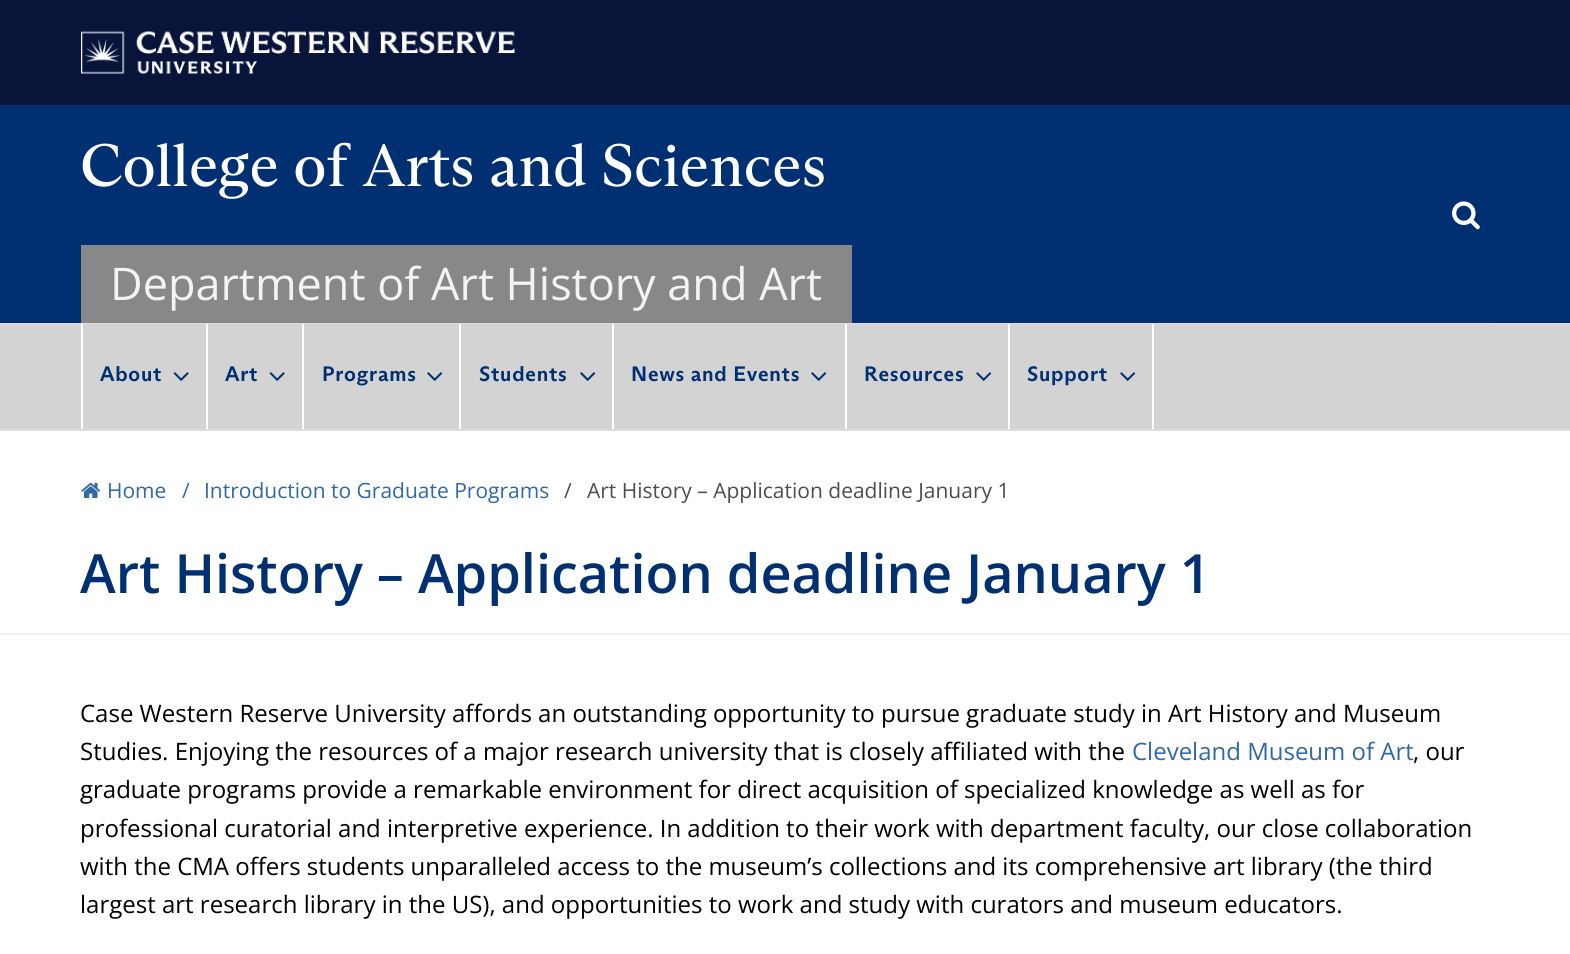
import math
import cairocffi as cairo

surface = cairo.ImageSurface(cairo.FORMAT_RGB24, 1570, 954)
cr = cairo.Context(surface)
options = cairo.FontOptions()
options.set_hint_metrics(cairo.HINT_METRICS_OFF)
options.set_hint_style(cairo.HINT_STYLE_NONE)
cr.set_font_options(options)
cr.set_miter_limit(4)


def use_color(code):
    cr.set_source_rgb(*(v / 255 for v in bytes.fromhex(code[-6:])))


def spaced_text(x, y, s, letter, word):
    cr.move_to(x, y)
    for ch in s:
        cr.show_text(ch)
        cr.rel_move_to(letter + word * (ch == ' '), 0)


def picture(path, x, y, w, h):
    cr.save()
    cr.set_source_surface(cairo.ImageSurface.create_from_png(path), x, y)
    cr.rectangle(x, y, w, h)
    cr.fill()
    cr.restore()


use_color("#ffffff")
cr.paint()
use_color("#09143a")
cr.rectangle(0, 0, 1570, 105)
cr.fill()
picture("img1.png", 81, 31, 434, 43)
use_color("#003071")
cr.rectangle(0, 105, 1570, 218)
cr.fill()
cr.select_font_face("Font")
cr.set_font_size(60)
use_color("#ffffff")
cr.move_to(80, 186)
cr.show_text("College of Arts and Sciences")
use_color("#888888")
cr.rectangle(81, 245, 771, 78)
cr.fill()
cr.select_font_face("Open Sans")
cr.set_font_size(45)
use_color("#f3f3f3")
cr.move_to(110, 300)
cr.show_text("Department of Art History and Art")
picture("img2.png", 1452, 201, 28, 29)
use_color("#d3d3d3")
cr.rectangle(0, 325, 1570, 104)
cr.fill()
use_color("#dcdcdc")
cr.rectangle(0, 323, 1570, 2)
cr.fill()
cr.rectangle(0, 429, 1570, 2)
cr.fill()
use_color("#d3d3d3")
cr.rectangle(83, 324, 1408, 1)
cr.fill()
use_color("#ffffff")
cr.rectangle(81, 324, 2, 105)
cr.fill()
cr.rectangle(206, 324, 2, 105)
cr.fill()
cr.select_font_face("Font", cairo.FONT_SLANT_NORMAL, cairo.FONT_WEIGHT_BOLD)
cr.set_font_size(21)
use_color("#003071")
spaced_text(100, 381, "About", 0.75, 0)
picture("img3.png", 173, 372, 16, 9)
use_color("#ffffff")
cr.rectangle(302, 324, 2, 105)
cr.fill()
use_color("#003071")
spaced_text(225, 381, "Art", 0.75, 0)
picture("img3.png", 269, 372, 16, 9)
use_color("#ffffff")
cr.rectangle(459, 324, 2, 105)
cr.fill()
use_color("#003071")
spaced_text(322, 381, "Programs", 0.75, 0)
picture("img4.png", 427, 372, 16, 9)
use_color("#ffffff")
cr.rectangle(612, 324, 2, 105)
cr.fill()
use_color("#003071")
spaced_text(479, 381, "Students", 0.75, 0)
picture("img4.png", 580, 372, 16, 9)
use_color("#ffffff")
cr.rectangle(845, 324, 2, 105)
cr.fill()
use_color("#003071")
spaced_text(631, 381, "News and Events", 0.75, 0)
picture("img4.png", 811, 372, 16, 9)
use_color("#ffffff")
cr.rectangle(1008, 324, 2, 105)
cr.fill()
use_color("#003071")
spaced_text(864, 381, "Resources", 0.75, 0)
picture("img4.png", 976, 372, 16, 9)
use_color("#ffffff")
cr.rectangle(1152, 324, 2, 105)
cr.fill()
use_color("#003071")
spaced_text(1027, 381, "Support", 0.75, 0)
picture("img4.png", 1120, 372, 16, 9)
use_color("#f2f2f2")
cr.rectangle(0, 633, 1570, 2)
cr.fill()
picture("img5.png", 81, 483, 20, 15)
cr.select_font_face("Open Sans")
use_color("#3168a6")
cr.move_to(107, 498)
cr.show_text("Home")
cr.move_to(182, 498)
cr.show_text("/")
cr.move_to(204, 498)
cr.show_text("Introduction to Graduate Programs")
use_color("#4d4d4d")
cr.move_to(564, 498)
cr.show_text("/")
cr.move_to(587, 498)
cr.show_text("Art History – Application deadline January 1")
cr.select_font_face("Open Sans SemiBold")
cr.set_font_size(54)
use_color("#003071")
cr.move_to(80, 593)
cr.show_text("Art History – Application deadline January 1")
cr.select_font_face("Open Sans")
cr.set_font_size(24)
use_color("#000000")
cr.move_to(80, 722)
cr.show_text("Case Western Reserve University affords an outstanding opportunity to pursue graduate study in Art History and Museum")
cr.move_to(80, 760)
cr.show_text("Studies. Enjoying the resources of a major research university that is closely affiliated with the")
use_color("#3168a6")
cr.move_to(1132, 760)
cr.show_text("Cleveland Museum of Art")
use_color("#000000")
cr.move_to(1413, 760)
cr.show_text(", our")
cr.move_to(80, 798)
cr.show_text("graduate programs provide a remarkable environment for direct acquisition of specialized knowledge as well as for")
cr.move_to(80, 837)
cr.show_text("professional curatorial and interpretive experience. In addition to their work with department faculty, our close collaboration")
cr.move_to(80, 875)
cr.show_text("with the CMA offers students unparalleled access to the museum’s collections and its comprehensive art library (the third")
cr.move_to(80, 913)
cr.show_text("largest art research library in the US), and opportunities to work and study with curators and museum educators.")
surface.write_to_png("result.png")
